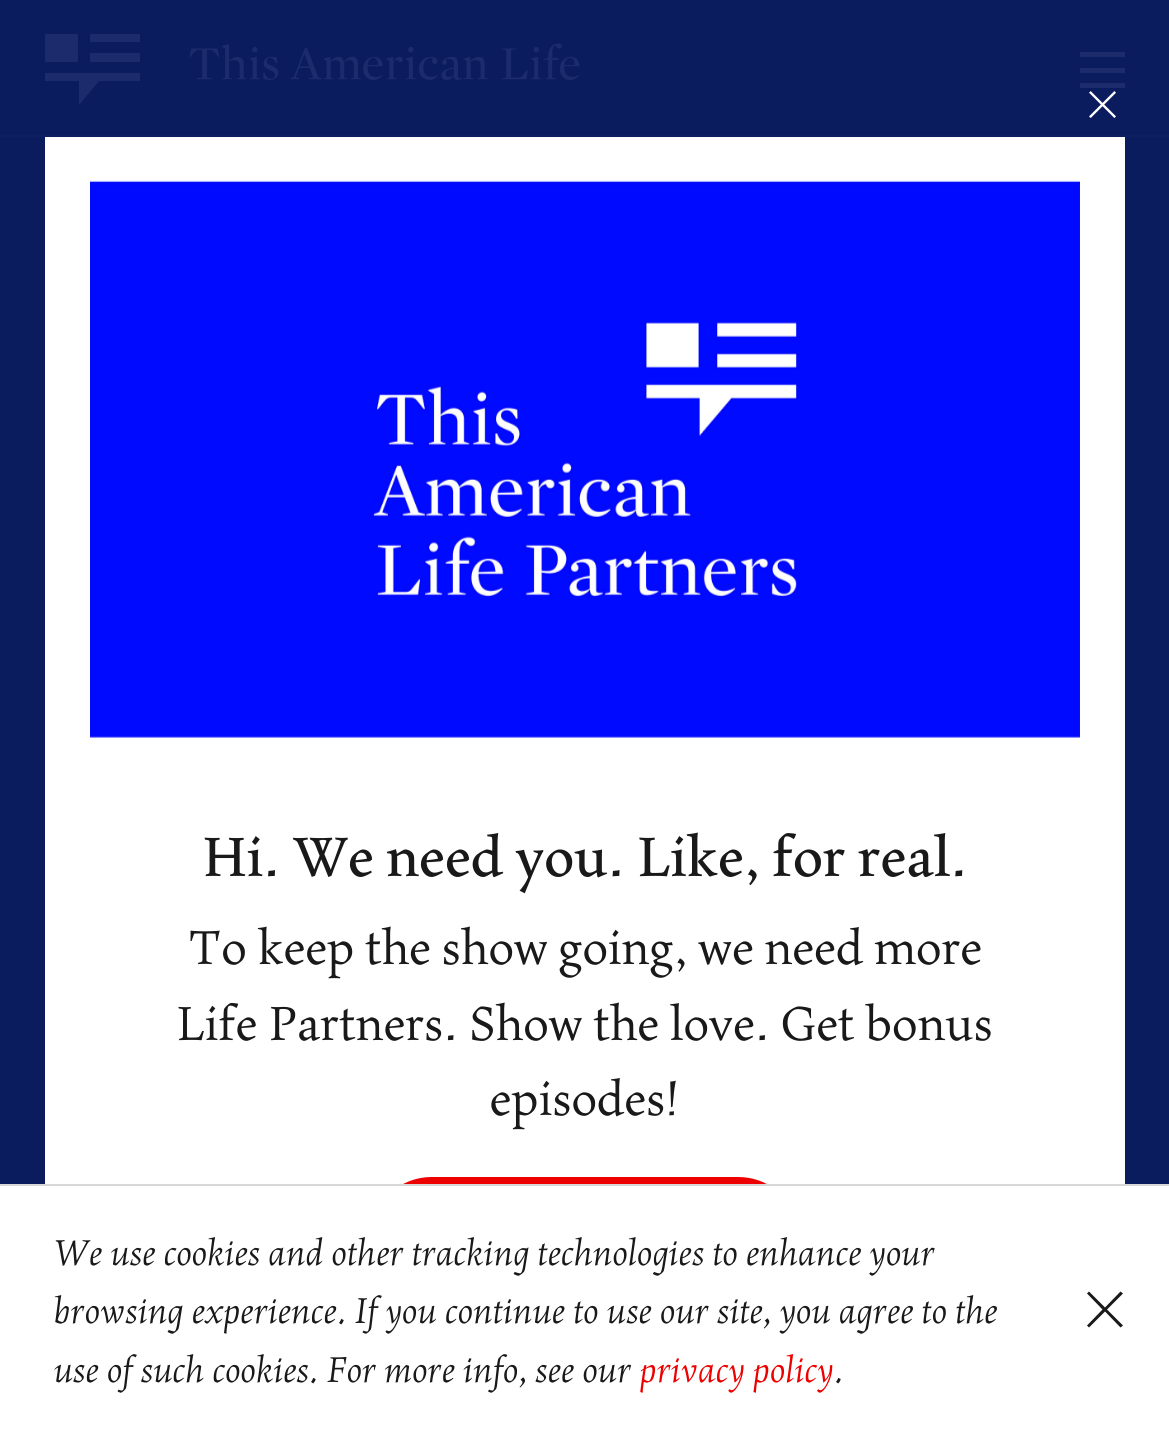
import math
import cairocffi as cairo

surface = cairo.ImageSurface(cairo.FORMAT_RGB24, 1169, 1433)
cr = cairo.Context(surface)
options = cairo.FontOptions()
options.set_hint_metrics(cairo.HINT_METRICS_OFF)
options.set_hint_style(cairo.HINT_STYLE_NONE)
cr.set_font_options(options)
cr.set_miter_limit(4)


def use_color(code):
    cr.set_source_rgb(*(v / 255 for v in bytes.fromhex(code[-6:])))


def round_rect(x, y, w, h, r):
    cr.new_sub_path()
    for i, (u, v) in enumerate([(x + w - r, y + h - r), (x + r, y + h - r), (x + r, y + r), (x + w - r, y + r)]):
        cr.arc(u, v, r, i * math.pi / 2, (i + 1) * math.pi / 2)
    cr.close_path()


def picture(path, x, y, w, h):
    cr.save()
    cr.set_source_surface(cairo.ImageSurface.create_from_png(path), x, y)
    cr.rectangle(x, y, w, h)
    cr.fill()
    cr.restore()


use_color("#0a1b5e")
cr.paint()
use_color("#1b2b6b")
cr.new_path()
cr.move_to(90, 62)
cr.line_to(140, 62)
cr.line_to(140, 53)
cr.line_to(90, 53)
cr.close_path()
cr.move_to(90, 34)
cr.line_to(90, 42)
cr.line_to(140, 42)
cr.line_to(140, 34)
cr.close_path()
cr.move_to(45, 34)
cr.line_to(78, 34)
cr.line_to(78, 62)
cr.line_to(45, 62)
cr.close_path()
cr.move_to(45, 73)
cr.line_to(45, 81)
cr.line_to(79, 81)
cr.line_to(79, 105)
cr.line_to(99, 81)
cr.line_to(140, 81)
cr.line_to(140, 73)
cr.close_path()
cr.fill()
picture("img1.png", 189, 43, 391, 37)
cr.rectangle(1080, 52, 45, 5)
cr.fill()
cr.rectangle(1080, 68, 45, 5)
cr.fill()
cr.rectangle(1080, 83, 45, 5)
cr.fill()
use_color("#0d1e61")
cr.rectangle(0, 135, 1169, 2)
cr.fill()
picture("img2.png", 1089, 91, 27, 27)
use_color("#ffffff")
cr.rectangle(45, 137, 1080, 1047)
cr.fill()
picture("img3.png", 90, 180, 990, 558)
cr.select_font_face("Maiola")
cr.set_font_size(62.6)
use_color("#191919")
cr.move_to(202, 876)
cr.show_text("Hi. We need you. Like, for real.")
cr.select_font_face("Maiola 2")
cr.set_font_size(54)
cr.move_to(188, 964)
cr.show_text("To keep the show going, we need more")
cr.move_to(176, 1040)
cr.show_text("Life Partners. Show the love. Get bonus")
cr.move_to(490, 1115)
cr.show_text("episodes!")
use_color("#ed0100")
round_rect(369, 1177, 432, 126, 63)
cr.fill()
use_color("#ffffff")
cr.rectangle(0, 1186, 1169, 247)
cr.fill()
use_color("#d8d8d8")
cr.rectangle(0, 1184, 1169, 2)
cr.fill()
cr.select_font_face("Maiola", cairo.FONT_SLANT_ITALIC)
cr.set_font_size(40.5)
use_color("#191919")
cr.move_to(54, 1265)
cr.show_text("We use cookies and other tracking technologies to enhance your")
cr.move_to(54, 1323)
cr.show_text("browsing experience. If you continue to use our site, you agree to the")
cr.move_to(54, 1382)
cr.show_text("use of such cookies. For more info, see our")
use_color("#ec0000")
cr.move_to(640, 1382)
cr.show_text("privacy policy")
use_color("#191919")
cr.move_to(834, 1382)
cr.show_text(".")
cr.new_path()
cr.move_to(1107, 1309.5)
cr.line_to(1123, 1293.5)
cr.line_to(1120.5, 1291.5)
cr.line_to(1105, 1307.5)
cr.line_to(1089, 1291.5)
cr.line_to(1087, 1293.5)
cr.line_to(1102.5, 1309.5)
cr.line_to(1087, 1325.5)
cr.line_to(1089, 1327.5)
cr.line_to(1105, 1311.5)
cr.line_to(1120.5, 1327.5)
cr.line_to(1123, 1325.5)
cr.close_path()
cr.fill()
surface.write_to_png("result.png")
